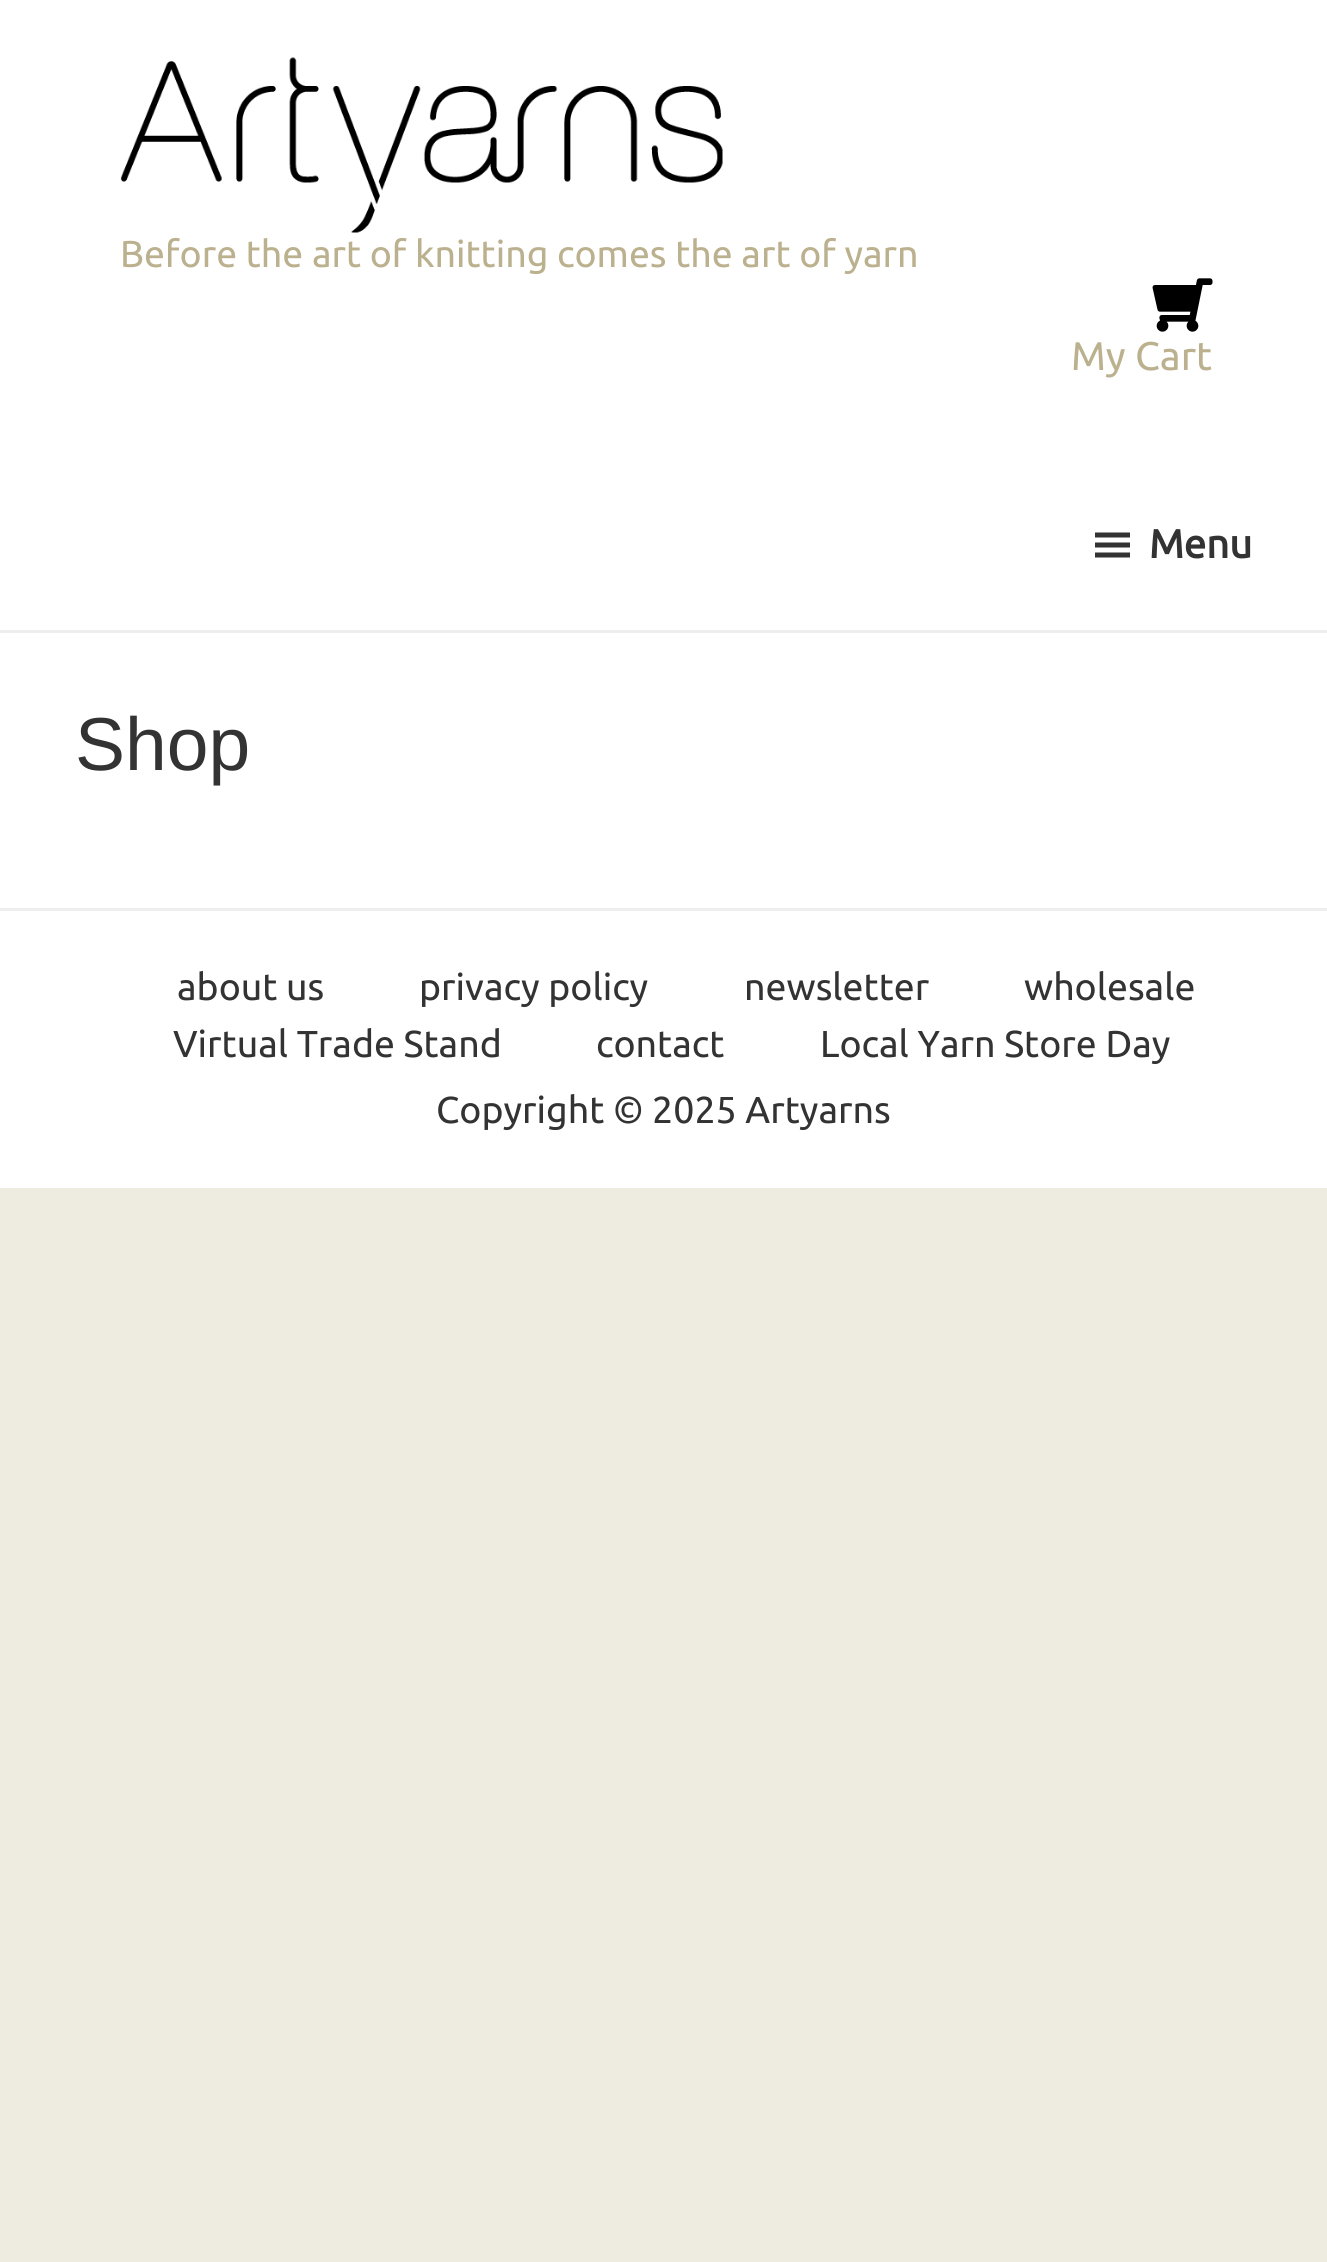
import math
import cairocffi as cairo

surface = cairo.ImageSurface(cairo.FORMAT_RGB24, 1327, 2262)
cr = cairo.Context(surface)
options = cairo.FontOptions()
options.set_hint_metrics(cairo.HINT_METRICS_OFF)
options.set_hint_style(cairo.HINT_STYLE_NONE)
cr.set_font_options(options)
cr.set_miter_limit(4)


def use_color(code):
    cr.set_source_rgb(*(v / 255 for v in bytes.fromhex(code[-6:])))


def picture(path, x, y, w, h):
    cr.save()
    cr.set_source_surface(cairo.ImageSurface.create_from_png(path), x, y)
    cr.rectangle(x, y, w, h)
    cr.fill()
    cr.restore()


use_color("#eeece0")
cr.paint()
use_color("#ffffff")
cr.rectangle(0, 0, 1327, 1188)
cr.fill()
use_color("#eeeeee")
cr.rectangle(0, 630, 1327, 3)
cr.fill()
picture("img1.png", 120, 57, 603, 176)
cr.select_font_face("Ubuntu")
cr.set_font_size(37.5)
use_color("#bbb18e")
cr.move_to(120, 267)
cr.show_text("Before the art of knitting comes the art of yarn")
picture("img2.png", 1152, 278, 61, 54)
cr.set_font_size(40)
cr.move_to(1071, 370)
cr.show_text("My Cart")
use_color("#333333")
cr.new_path()
cr.move_to(1095, 557.5)
cr.line_to(1130, 557.5)
cr.line_to(1130, 552.5)
cr.line_to(1095, 552.5)
cr.close_path()
cr.move_to(1095, 532.5)
cr.line_to(1095, 537.5)
cr.line_to(1130, 537.5)
cr.line_to(1130, 532.5)
cr.close_path()
cr.move_to(1095, 547.5)
cr.line_to(1130, 547.5)
cr.line_to(1130, 542.5)
cr.line_to(1095, 542.5)
cr.close_path()
cr.fill()
cr.select_font_face("Ubuntu", cairo.FONT_SLANT_NORMAL, cairo.FONT_WEIGHT_BOLD)
cr.move_to(1149, 558)
cr.show_text("Menu")
cr.select_font_face("Liberation Sans")
cr.set_font_size(75)
cr.move_to(75, 770)
cr.show_text("Shop")
use_color("#eeeeee")
cr.rectangle(0, 908, 1327, 3)
cr.fill()
cr.select_font_face("Ubuntu")
cr.set_font_size(37.5)
use_color("#333333")
cr.move_to(177, 1000)
cr.show_text("about us")
cr.move_to(419, 1000)
cr.show_text("privacy policy")
cr.move_to(744, 1000)
cr.show_text("newsletter")
cr.move_to(1024, 1000)
cr.show_text("wholesale")
cr.move_to(173, 1057)
cr.show_text("Virtual Trade Stand")
cr.move_to(596, 1057)
cr.show_text("contact")
cr.move_to(820, 1057)
cr.show_text("Local Yarn Store Day")
cr.move_to(436, 1123)
cr.show_text("Copyright © 2025 Artyarns")
surface.write_to_png("result.png")
